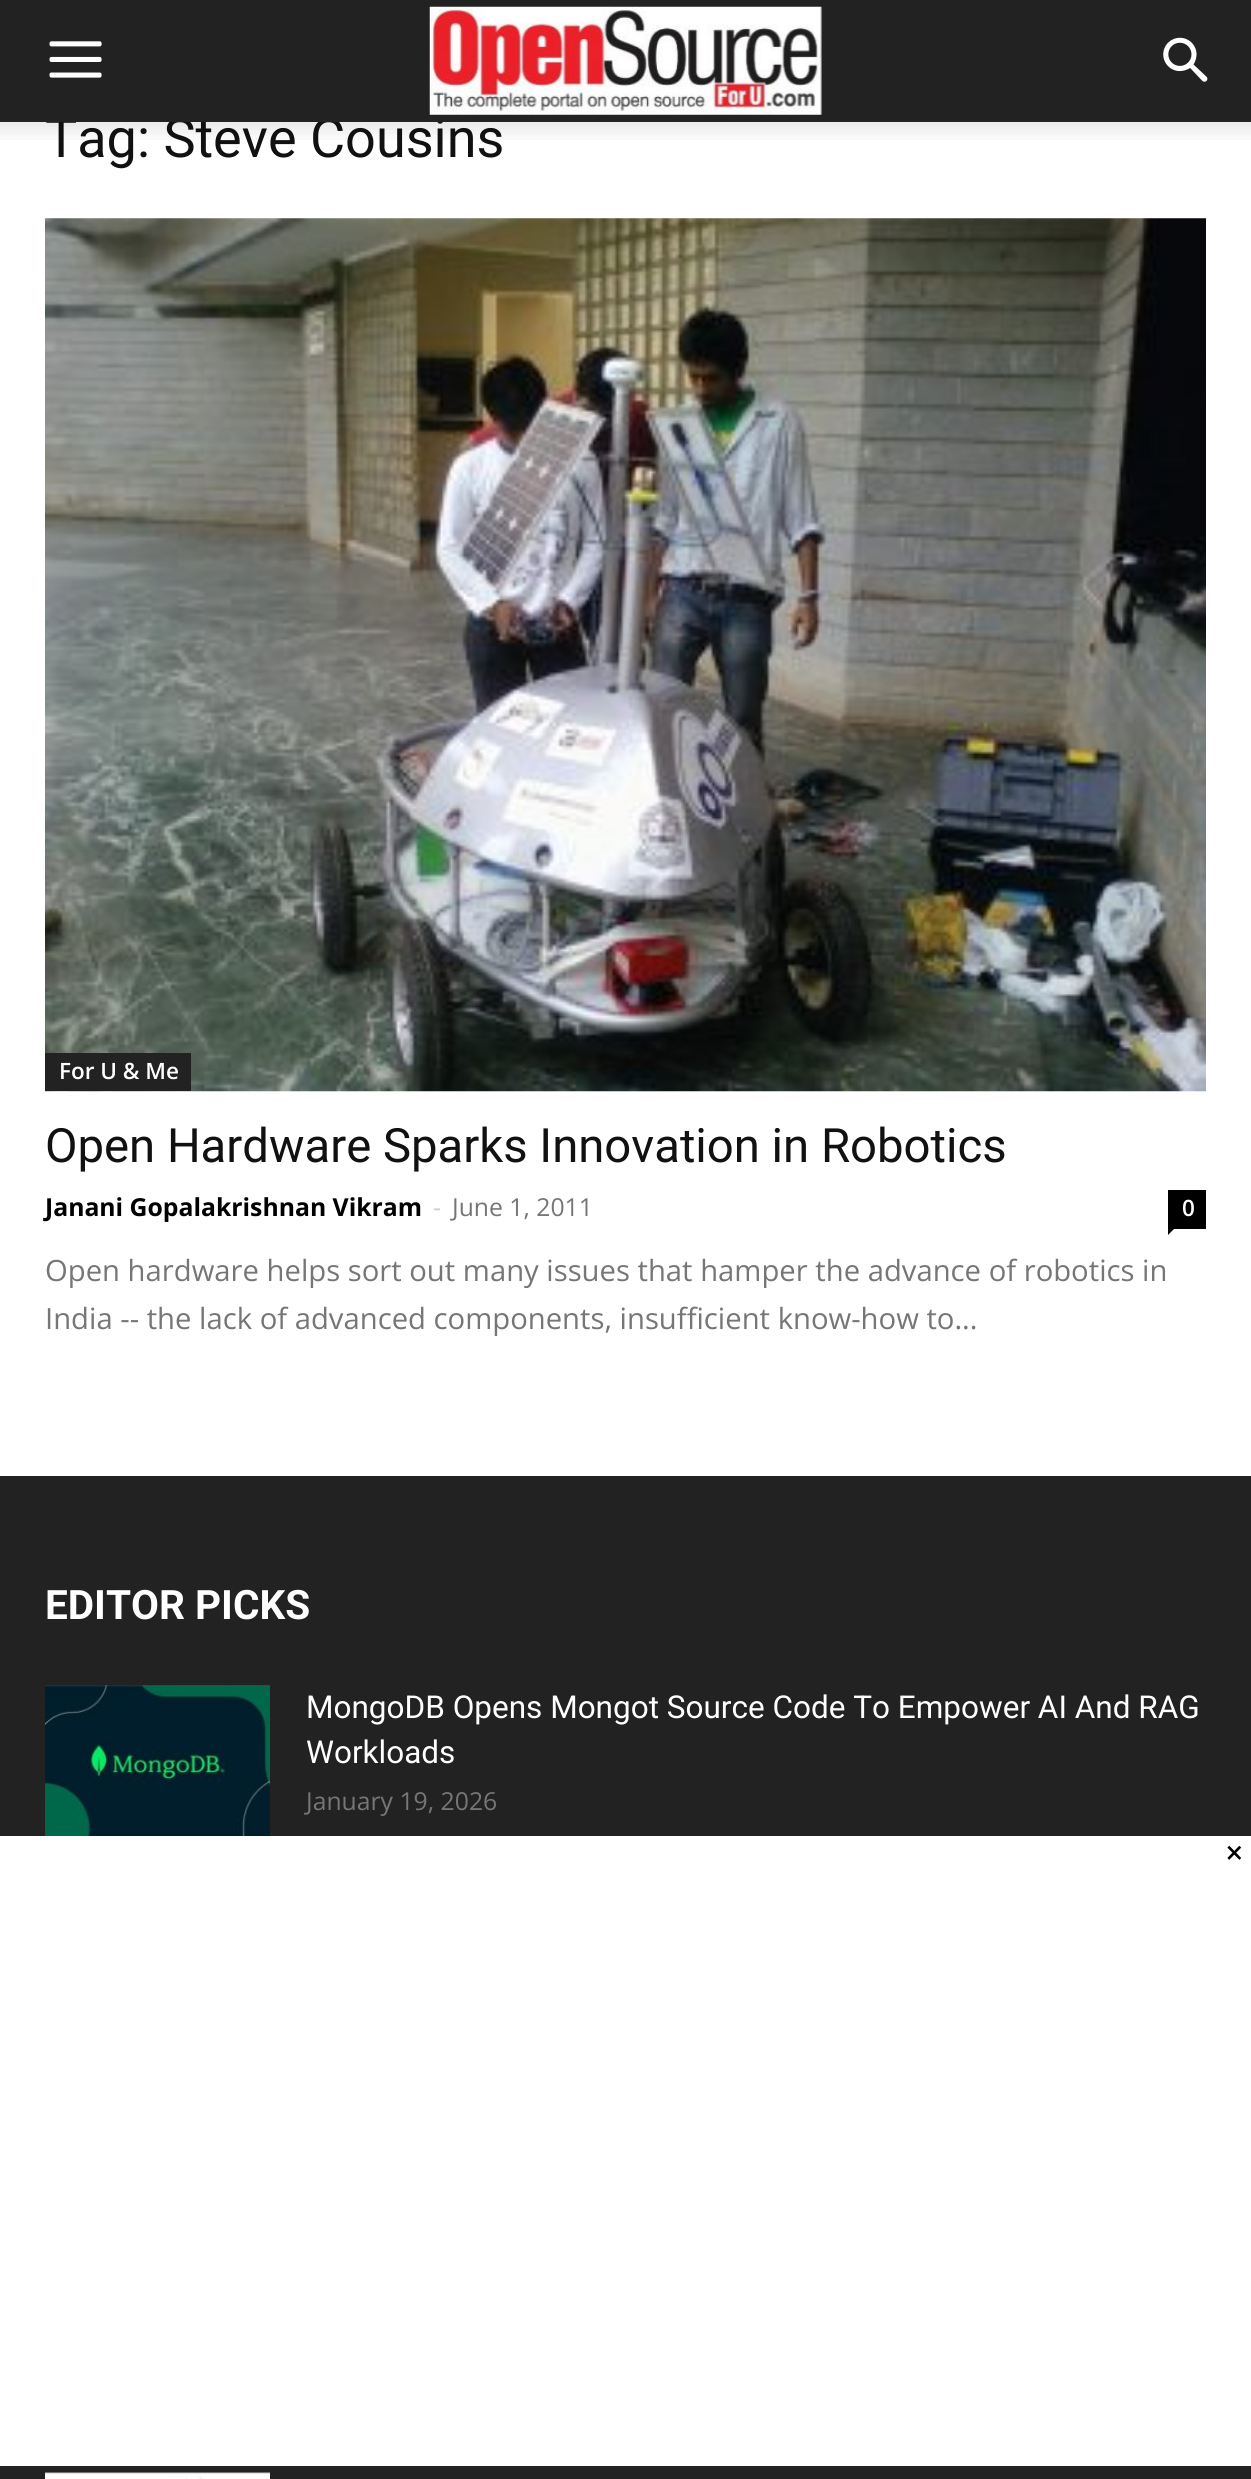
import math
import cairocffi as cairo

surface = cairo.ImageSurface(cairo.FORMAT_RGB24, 1251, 2479)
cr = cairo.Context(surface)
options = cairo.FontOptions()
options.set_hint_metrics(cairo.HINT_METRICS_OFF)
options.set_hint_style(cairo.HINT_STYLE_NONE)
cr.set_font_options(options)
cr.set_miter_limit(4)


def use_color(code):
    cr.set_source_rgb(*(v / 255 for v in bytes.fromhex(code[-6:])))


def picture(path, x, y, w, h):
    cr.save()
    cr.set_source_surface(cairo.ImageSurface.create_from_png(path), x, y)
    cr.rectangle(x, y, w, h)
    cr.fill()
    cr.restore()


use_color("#ffffff")
cr.paint()
cr.select_font_face("Roboto")
cr.set_font_size(54)
use_color("#111111")
cr.move_to(45, 157)
cr.show_text("Tag: Steve Cousins")
use_color("#222222")
cr.rectangle(0, 0, 1251, 122)
cr.fill()
picture("img1.png", 49, 41, 53, 37)
picture("img2.png", 429, 6, 393, 109)
picture("img3.png", 1163, 37, 45, 45)
picture("img4.png", 0, 122, 1251, 18)
picture("img5.png", 45, 218, 1161, 874)
cr.rectangle(45, 1053, 146, 38)
cr.fill()
cr.select_font_face("Open Sans SemiBold")
cr.set_font_size(22.5)
use_color("#ffffff")
cr.move_to(59, 1079)
cr.show_text("For U & Me")
cr.select_font_face("Roboto")
cr.set_font_size(47.25)
use_color("#111111")
cr.move_to(45, 1162)
cr.show_text("Open Hardware Sparks Innovation in Robotics")
cr.select_font_face("Open Sans", cairo.FONT_SLANT_NORMAL, cairo.FONT_WEIGHT_BOLD)
cr.set_font_size(24.75)
use_color("#000000")
cr.move_to(45, 1216)
cr.show_text("Janani Gopalakrishnan Vikram")
cr.select_font_face("Open Sans")
use_color("#cccccc")
cr.move_to(433, 1216)
cr.show_text("-")
use_color("#767676")
cr.move_to(452, 1216)
cr.show_text("June 1, 2011")
use_color("#000000")
cr.rectangle(1168, 1190, 38, 39)
cr.fill()
cr.select_font_face("Open Sans SemiBold")
cr.set_font_size(22.5)
use_color("#ffffff")
cr.move_to(1182, 1216)
cr.show_text("0")
use_color("#000000")
cr.new_path()
cr.move_to(1168, 1228.5)
cr.line_to(1174.5, 1228.5)
cr.line_to(1168, 1235)
cr.close_path()
cr.fill()
cr.select_font_face("Open Sans")
cr.set_font_size(29.25)
use_color("#767676")
cr.move_to(45, 1281)
cr.show_text("Open hardware helps sort out many issues that hamper the advance of robotics in")
cr.move_to(45, 1329)
cr.show_text("India -- the lack of advanced components, insufficient know-how to...")
use_color("#222222")
cr.rectangle(0, 1476, 1251, 1003)
cr.fill()
cr.select_font_face("Roboto", cairo.FONT_SLANT_NORMAL, cairo.FONT_WEIGHT_BOLD)
cr.set_font_size(40.5)
use_color("#ffffff")
cr.move_to(45, 1619)
cr.show_text("EDITOR PICKS")
picture("img6.png", 45, 1685, 225, 151)
cr.select_font_face("Roboto")
cr.set_font_size(31.5)
cr.move_to(306, 1718)
cr.show_text("MongoDB Opens Mongot Source Code To Empower AI And RAG")
cr.move_to(306, 1763)
cr.show_text("Workloads")
cr.select_font_face("Open Sans")
cr.set_font_size(24.75)
use_color("#767676")
cr.move_to(306, 1810)
cr.show_text("January 19, 2026")
picture("img7.png", 45, 2472, 225, 7)
use_color("#ffffff")
cr.rectangle(0, 1836, 1251, 630)
cr.fill()
cr.select_font_face("Roboto")
cr.set_font_size(31.5)
use_color("#000000")
cr.move_to(1226, 1863)
cr.show_text("×")
surface.write_to_png("result.png")
